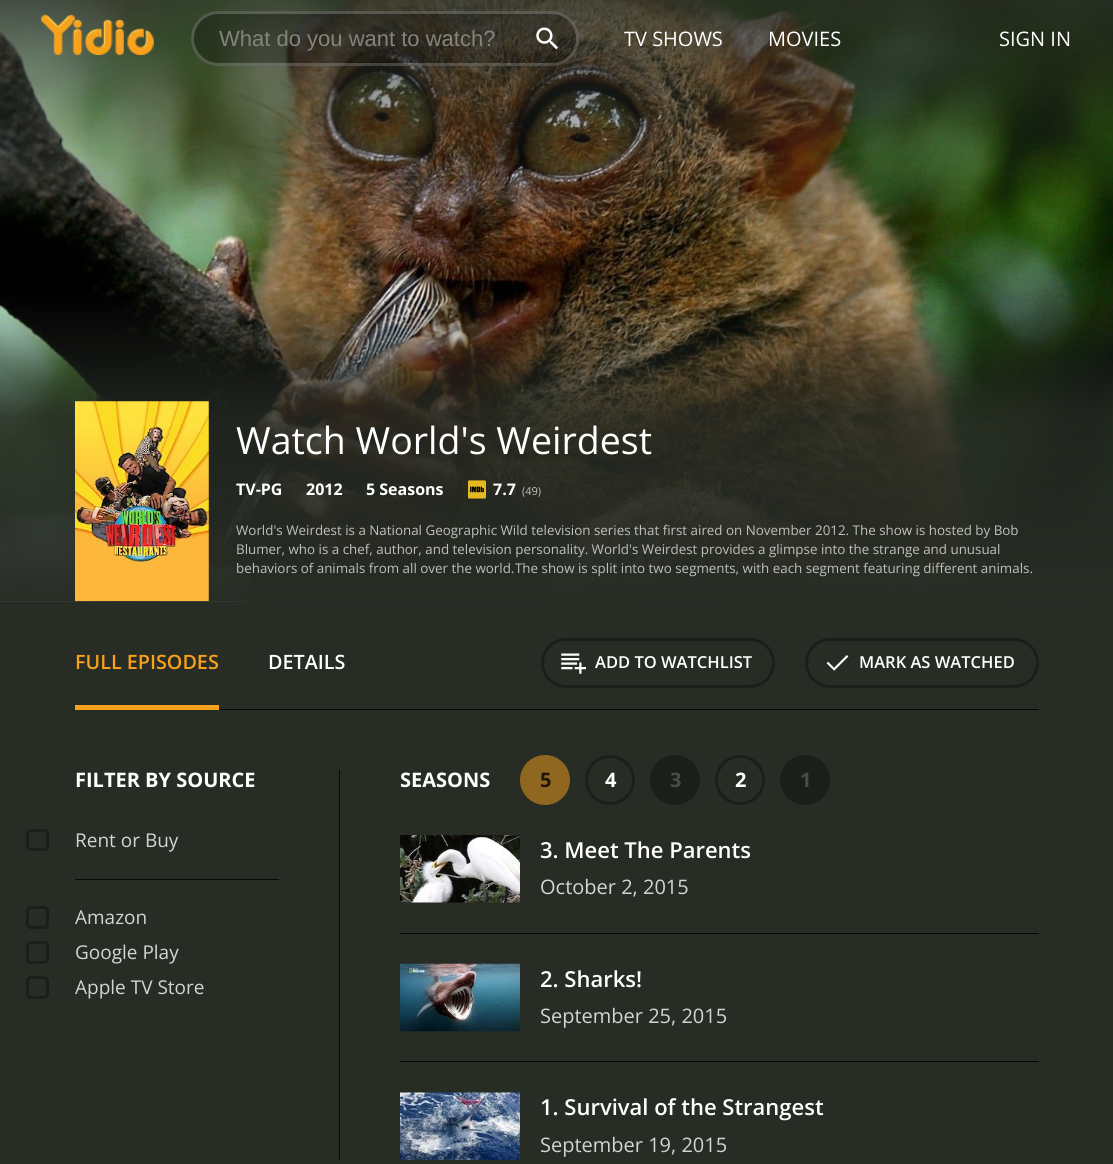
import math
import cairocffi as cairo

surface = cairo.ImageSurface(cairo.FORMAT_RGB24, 1113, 1164)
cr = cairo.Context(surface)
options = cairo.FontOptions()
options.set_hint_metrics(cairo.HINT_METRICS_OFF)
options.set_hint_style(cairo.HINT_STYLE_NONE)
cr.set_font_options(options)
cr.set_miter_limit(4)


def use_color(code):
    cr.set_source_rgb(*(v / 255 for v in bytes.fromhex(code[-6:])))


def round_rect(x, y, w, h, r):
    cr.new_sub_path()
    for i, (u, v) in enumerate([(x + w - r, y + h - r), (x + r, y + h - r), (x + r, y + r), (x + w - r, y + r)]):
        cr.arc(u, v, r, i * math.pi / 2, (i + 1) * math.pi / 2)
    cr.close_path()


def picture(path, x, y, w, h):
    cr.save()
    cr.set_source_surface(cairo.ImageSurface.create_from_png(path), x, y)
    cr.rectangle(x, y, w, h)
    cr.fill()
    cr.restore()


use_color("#272c25")
cr.paint()
picture("img3.png", 0, 0, 1113, 602)
picture("img1.png", 41, 14, 113, 41)
cr.set_source_rgba(0, 0, 0, 0.3)
round_rect(191, 11, 388, 55, 27.5)
cr.fill()
round_rect(192.5, 12.5, 385, 52, 26)
cr.set_source_rgba(1, 1, 1, 0.2)
cr.set_line_width(3)
cr.stroke()
cr.select_font_face("Liberation Sans")
cr.set_font_size(22)
use_color("#84847d")
cr.move_to(219, 46)
cr.show_text("What do you want to watch?")
picture("img2.png", 536, 27, 22, 23)
cr.select_font_face("Open Sans")
cr.set_font_size(20)
use_color("#ffffff")
cr.move_to(624, 46)
cr.show_text("TV SHOWS")
cr.move_to(768, 46)
cr.show_text("MOVIES")
cr.move_to(999, 46)
cr.show_text("SIGN IN")
cr.set_source_rgba(1, 1, 1, 0.05)
cr.rectangle(75, 401, 134, 200)
cr.fill()
picture("img4.png", 75, 401, 134, 201)
cr.set_font_size(37.5)
use_color("#ffffff")
cr.move_to(236, 454)
cr.show_text("Watch World's Weirdest")
cr.select_font_face("Open Sans", cairo.FONT_SLANT_NORMAL, cairo.FONT_WEIGHT_BOLD)
cr.set_font_size(16)
cr.move_to(236, 495)
cr.show_text("TV-PG")
cr.move_to(306, 495)
cr.show_text("2012")
cr.move_to(366, 495)
cr.show_text("5 Seasons")
picture("img5.png", 468, 480, 18, 19)
cr.move_to(493, 495)
cr.show_text("7.7")
cr.select_font_face("Open Sans")
cr.set_font_size(11)
use_color("#bfc0bd")
cr.move_to(522, 495)
cr.show_text("(49)")
cr.set_font_size(13.37)
cr.move_to(236, 535)
cr.show_text("World's Weirdest is a National Geographic Wild television series that first aired on November 2012. The show is hosted by Bob")
cr.move_to(236, 554)
cr.show_text("Blumer, who is a chef, author, and television personality. World's Weirdest provides a glimpse into the strange and unusual")
cr.move_to(236, 573)
cr.show_text("behaviors of animals from all over the world.")
cr.move_to(515, 573)
cr.show_text("The show is split into two segments, with each segment featuring different animals.")
use_color("#080907")
cr.rectangle(219, 709, 820, 1)
cr.fill()
use_color("#f9a11b")
cr.rectangle(75, 705, 144, 5)
cr.fill()
cr.select_font_face("Open Sans SemiBold")
cr.set_font_size(19.75)
cr.move_to(75, 669)
cr.show_text("FULL EPISODES")
use_color("#ffffff")
cr.move_to(268, 669)
cr.show_text("DETAILS")
round_rect(542.5, 639.5, 231, 47, 23.5)
use_color("#1b1f1a")
cr.stroke()
picture("img6.png", 561, 653, 25, 21)
cr.set_font_size(16.5)
use_color("#ffffff")
cr.move_to(595, 668)
cr.show_text("ADD TO WATCHLIST")
round_rect(806.5, 639.5, 231, 47, 23.5)
use_color("#1b1f1a")
cr.stroke()
picture("img7.png", 826, 655, 23, 16)
use_color("#ffffff")
cr.move_to(859, 668)
cr.show_text("MARK AS WATCHED")
use_color("#080907")
cr.rectangle(339, 770, 1, 390)
cr.fill()
cr.select_font_face("Open Sans", cairo.FONT_SLANT_NORMAL, cairo.FONT_WEIGHT_BOLD)
cr.set_font_size(20)
use_color("#ffffff")
cr.move_to(75, 787)
cr.show_text("FILTER BY SOURCE")
round_rect(27.5, 830.5, 20, 19, 3.5)
use_color("#1b1f1a")
cr.stroke()
cr.select_font_face("Open Sans")
cr.set_font_size(19)
use_color("#d4d5d3")
cr.move_to(75, 847)
cr.show_text("Rent or Buy")
use_color("#080907")
cr.rectangle(75, 879, 204, 1)
cr.fill()
round_rect(27.5, 907.5, 20, 20, 3.5)
use_color("#1b1f1a")
cr.stroke()
use_color("#d4d5d3")
cr.move_to(75, 924)
cr.show_text("Amazon")
round_rect(27.5, 942.5, 20, 20, 3.5)
use_color("#1b1f1a")
cr.stroke()
use_color("#d4d5d3")
cr.move_to(75, 959)
cr.show_text("Google Play")
round_rect(27.5, 977.5, 20, 20, 3.5)
use_color("#1b1f1a")
cr.stroke()
use_color("#d4d5d3")
cr.move_to(75, 994)
cr.show_text("Apple TV Store")
cr.select_font_face("Open Sans", cairo.FONT_SLANT_NORMAL, cairo.FONT_WEIGHT_BOLD)
cr.set_font_size(20)
use_color("#ffffff")
cr.move_to(400, 787)
cr.show_text("SEASONS")
use_color("#906720")
cr.new_path()
cr.arc(545, 780, 25, 0, 2 * math.pi)
cr.fill()
use_color("#1d1506")
cr.move_to(540, 787)
cr.show_text("5")
cr.new_path()
cr.arc(610, 780, 23.5, 0, 2 * math.pi)
use_color("#1b1f1a")
cr.stroke()
use_color("#ffffff")
cr.move_to(605, 787)
cr.show_text("4")
use_color("#1b1f1a")
cr.new_path()
cr.arc(675, 780, 25, 0, 2 * math.pi)
cr.fill()
use_color("#494c48")
cr.move_to(670, 787)
cr.show_text("3")
cr.new_path()
cr.arc(740, 780, 23.5, 0, 2 * math.pi)
use_color("#1b1f1a")
cr.stroke()
use_color("#ffffff")
cr.move_to(735, 787)
cr.show_text("2")
use_color("#1b1f1a")
cr.new_path()
cr.arc(805, 780, 25, 0, 2 * math.pi)
cr.fill()
use_color("#494c48")
cr.move_to(800, 787)
cr.show_text("1")
use_color("#21251f")
cr.rectangle(400, 902, 120, 1)
cr.fill()
picture("img8.png", 400, 835, 120, 68)
cr.select_font_face("Open Sans SemiBold")
cr.set_font_size(22)
use_color("#ffffff")
cr.move_to(540, 858)
cr.show_text("3. Meet The Parents")
cr.select_font_face("Open Sans")
cr.set_font_size(20)
use_color("#d4d5d3")
cr.move_to(540, 894)
cr.show_text("October 2, 2015")
use_color("#080907")
cr.rectangle(400, 933, 639, 1)
cr.fill()
picture("img9.png", 400, 963, 120, 69)
cr.select_font_face("Open Sans SemiBold")
cr.set_font_size(22)
use_color("#ffffff")
cr.move_to(540, 987)
cr.show_text("2. Sharks!")
cr.select_font_face("Open Sans")
cr.set_font_size(20)
use_color("#d4d5d3")
cr.move_to(540, 1023)
cr.show_text("September 25, 2015")
use_color("#080907")
cr.rectangle(400, 1061, 639, 1)
cr.fill()
picture("img10.png", 400, 1092, 120, 68)
cr.select_font_face("Open Sans SemiBold")
cr.set_font_size(22)
use_color("#ffffff")
cr.move_to(540, 1115)
cr.show_text("1. Survival of the Strangest")
cr.select_font_face("Open Sans")
cr.set_font_size(20)
use_color("#d4d5d3")
cr.move_to(540, 1152)
cr.show_text("September 19, 2015")
surface.write_to_png("result.png")
